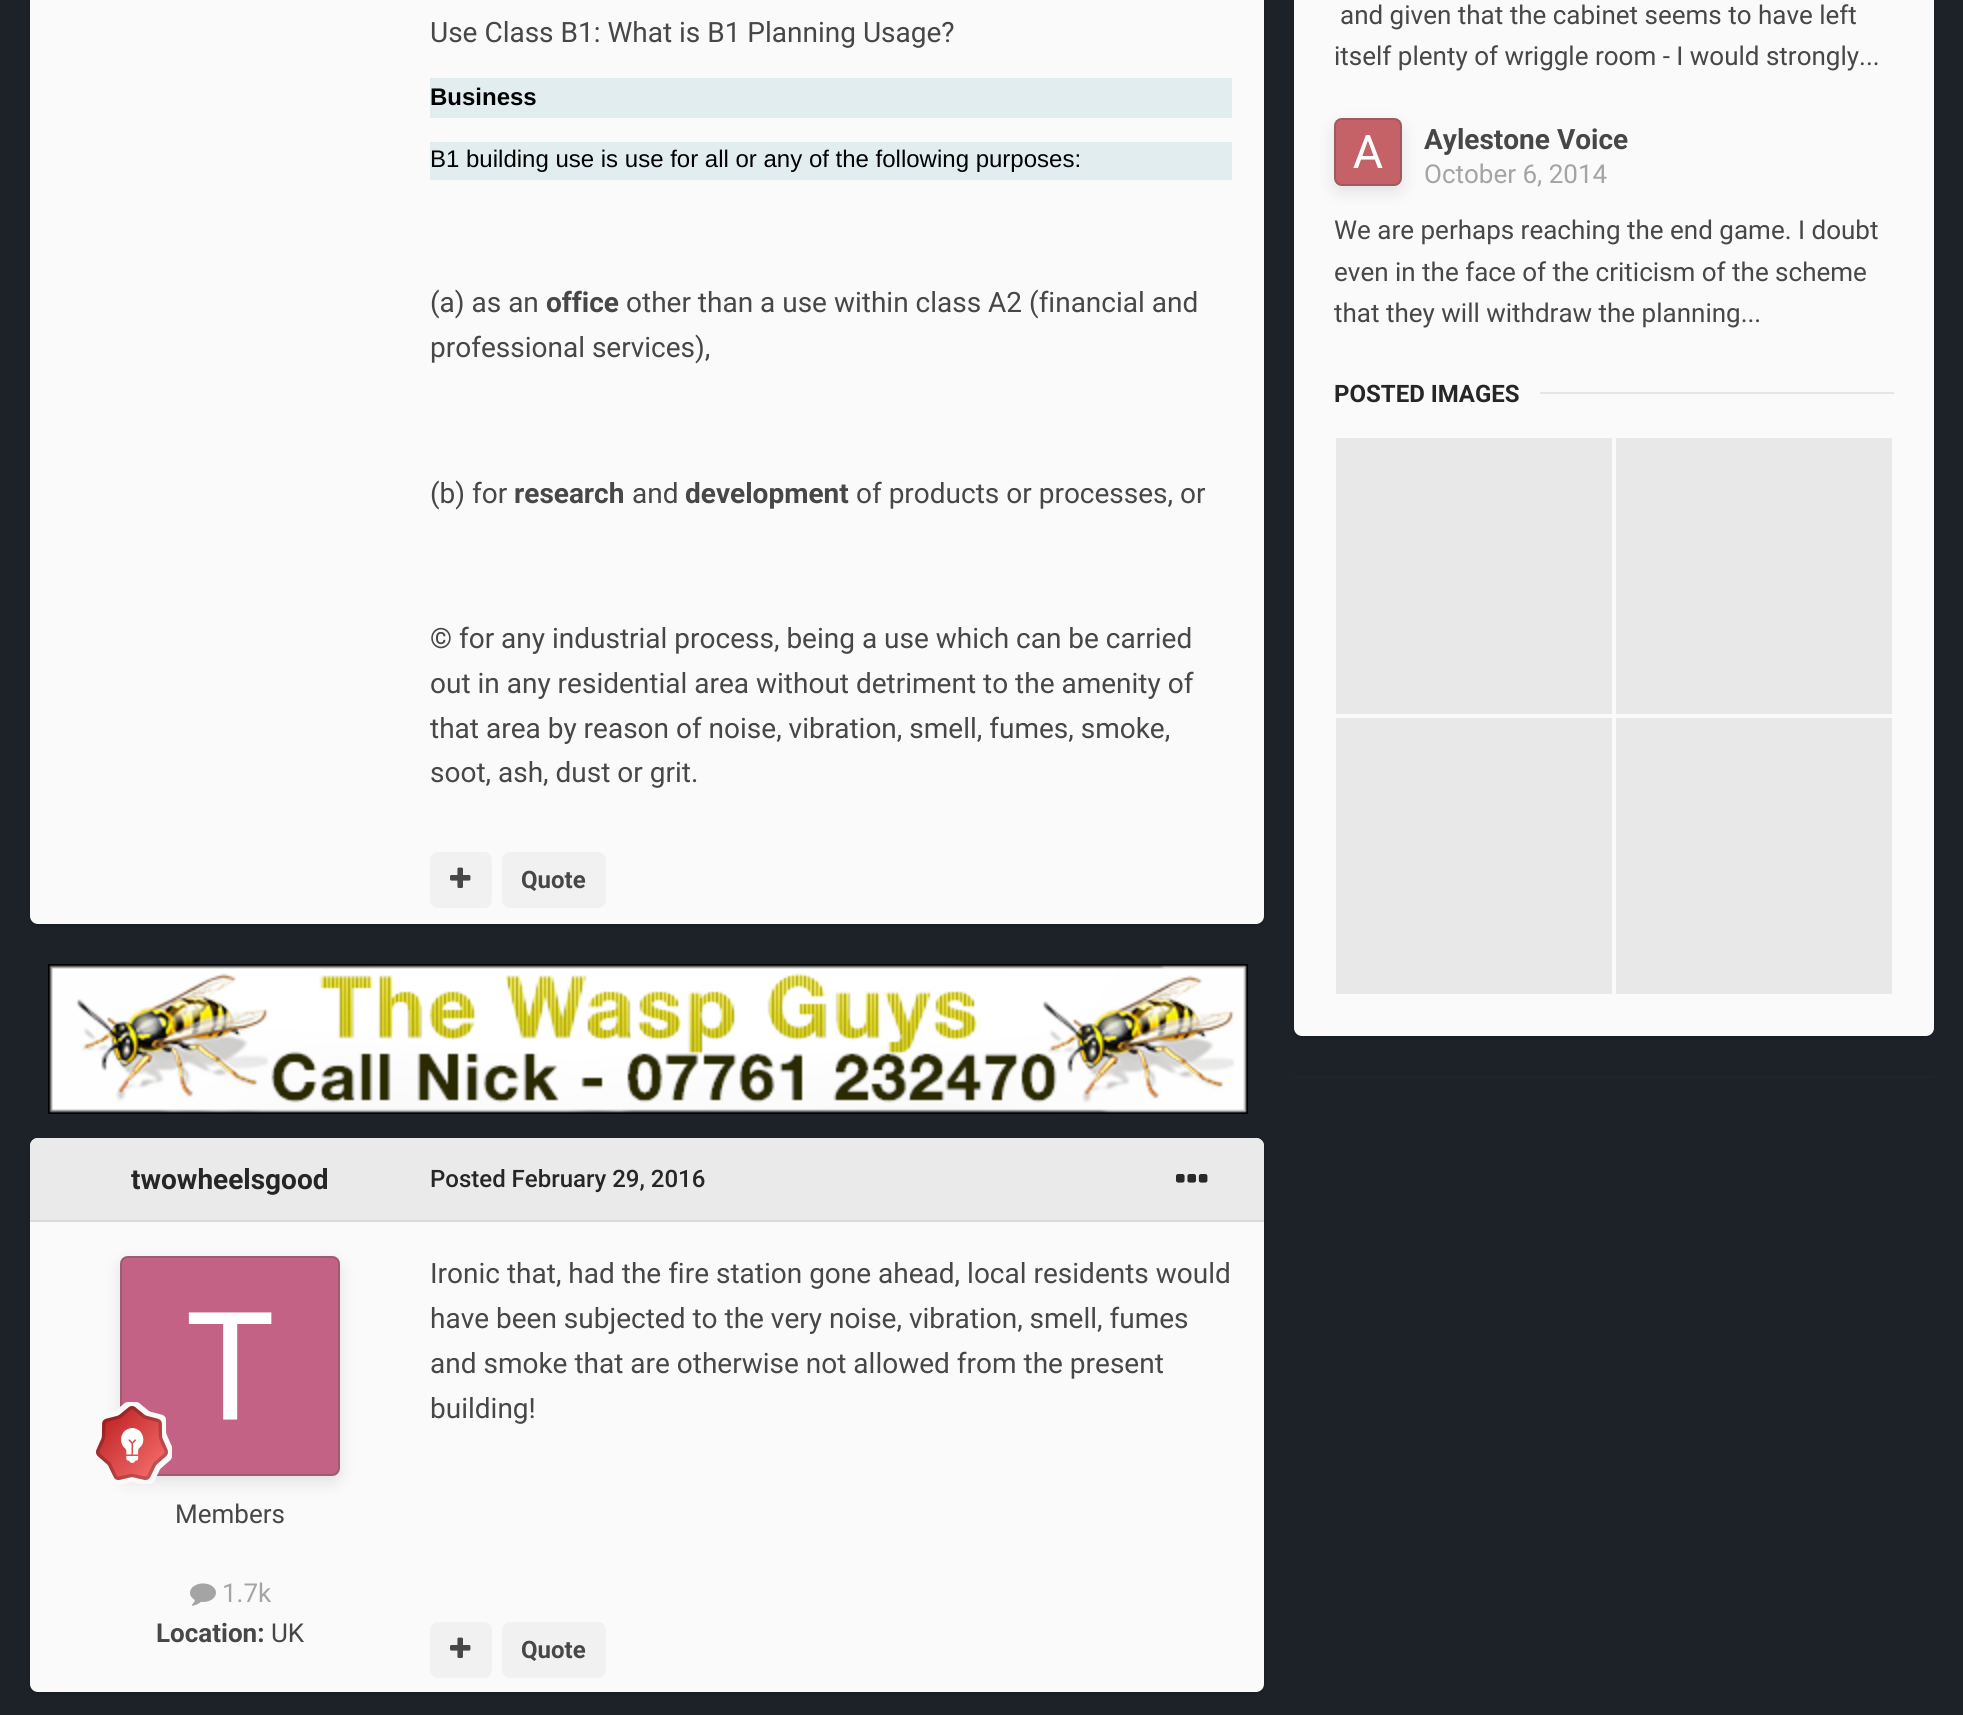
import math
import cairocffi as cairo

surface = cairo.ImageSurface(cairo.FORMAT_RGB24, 1963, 1715)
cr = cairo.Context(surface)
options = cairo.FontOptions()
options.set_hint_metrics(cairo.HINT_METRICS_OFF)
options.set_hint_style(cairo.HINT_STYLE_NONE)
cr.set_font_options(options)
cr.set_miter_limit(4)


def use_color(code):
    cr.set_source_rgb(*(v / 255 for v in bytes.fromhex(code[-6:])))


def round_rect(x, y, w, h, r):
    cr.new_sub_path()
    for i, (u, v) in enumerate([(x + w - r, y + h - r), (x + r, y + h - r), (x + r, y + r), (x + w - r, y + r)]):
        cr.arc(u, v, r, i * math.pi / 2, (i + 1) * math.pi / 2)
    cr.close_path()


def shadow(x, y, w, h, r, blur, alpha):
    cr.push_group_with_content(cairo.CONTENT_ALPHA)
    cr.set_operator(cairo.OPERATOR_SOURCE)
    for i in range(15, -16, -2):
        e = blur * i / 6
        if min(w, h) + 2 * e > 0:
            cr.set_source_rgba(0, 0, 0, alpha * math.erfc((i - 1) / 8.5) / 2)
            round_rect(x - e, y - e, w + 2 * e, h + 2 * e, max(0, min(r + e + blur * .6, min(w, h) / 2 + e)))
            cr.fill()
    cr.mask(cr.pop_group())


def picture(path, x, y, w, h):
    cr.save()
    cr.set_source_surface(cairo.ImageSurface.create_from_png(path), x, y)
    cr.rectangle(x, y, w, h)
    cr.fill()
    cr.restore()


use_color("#1d2229")
cr.paint()
use_color("#000000")
shadow(32, -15, 1230, 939, 6, 3, 0.3)
use_color("#fafafa")
round_rect(30, -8, 1234, 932, 8)
cr.fill()
cr.select_font_face("Roboto")
cr.set_font_size(28)
use_color("#474747")
cr.move_to(430, 42)
cr.show_text("Use Class B1: What is B1 Planning Usage?")
use_color("#e1edef")
cr.rectangle(430, 78, 802, 40)
cr.fill()
cr.select_font_face("Liberation Sans", cairo.FONT_SLANT_NORMAL, cairo.FONT_WEIGHT_BOLD)
cr.set_font_size(24)
use_color("#000000")
cr.move_to(430, 105)
cr.show_text("Business")
use_color("#e1edef")
cr.rectangle(430, 142, 802, 38)
cr.fill()
cr.select_font_face("Liberation Sans")
use_color("#000000")
cr.move_to(430, 167)
cr.show_text("B1 building use is use for all or any of the following purposes:")
cr.select_font_face("Roboto")
cr.set_font_size(28)
use_color("#474747")
cr.move_to(430, 312)
cr.show_text("(a) as an")
cr.select_font_face("Roboto", cairo.FONT_SLANT_NORMAL, cairo.FONT_WEIGHT_BOLD)
cr.move_to(546, 312)
cr.show_text("office")
cr.select_font_face("Roboto")
cr.move_to(626, 312)
cr.show_text("other than a use within class A2 (financial and")
cr.move_to(430, 357)
cr.show_text("professional services),")
cr.move_to(430, 503)
cr.show_text("(b) for")
cr.select_font_face("Roboto", cairo.FONT_SLANT_NORMAL, cairo.FONT_WEIGHT_BOLD)
cr.move_to(514, 503)
cr.show_text("research")
cr.select_font_face("Roboto")
cr.move_to(632, 503)
cr.show_text("and")
cr.select_font_face("Roboto", cairo.FONT_SLANT_NORMAL, cairo.FONT_WEIGHT_BOLD)
cr.move_to(685, 503)
cr.show_text("development")
cr.select_font_face("Roboto")
cr.move_to(856, 503)
cr.show_text("of products or processes, or")
cr.move_to(430, 648)
cr.show_text("© for any industrial process, being a use which can be carried")
cr.move_to(430, 693)
cr.show_text("out in any residential area without detriment to the amenity of")
cr.move_to(430, 738)
cr.show_text("that area by reason of noise, vibration, smell, fumes, smoke,")
cr.move_to(430, 782)
cr.show_text("soot, ash, dust or grit.")
use_color("#f1f1f1")
round_rect(430, 852, 62, 56, 8)
cr.fill()
picture("img1.png", 450, 867, 21, 21)
round_rect(502, 852, 104, 56, 8)
cr.fill()
cr.select_font_face("Roboto", cairo.FONT_SLANT_NORMAL, cairo.FONT_WEIGHT_BOLD)
cr.set_font_size(24)
use_color("#474747")
cr.move_to(521, 888)
cr.show_text("Quote")
picture("img2.png", 48, 964, 1200, 150)
use_color("#000000")
shadow(32, 1142, 1230, 550, 6, 3, 0.3)
use_color("#fafafa")
round_rect(30, 1138, 1234, 554, 8)
cr.fill()
use_color("#eaeaea")
cr.new_path()
cr.move_to(38, 1138)
cr.line_to(1256, 1138)
cr.curve_to(1260.5, 1138, 1264, 1141.5, 1264, 1146)
cr.line_to(1264, 1222)
cr.line_to(30, 1222)
cr.line_to(30, 1146)
cr.curve_to(30, 1141.5, 33.5, 1138, 38, 1138)
cr.close_path()
cr.fill()
use_color("#dadada")
cr.rectangle(30, 1220, 1234, 2)
cr.fill()
cr.set_font_size(28)
use_color("#262626")
cr.move_to(131, 1189)
cr.show_text("twowheelsgood")
picture("img3.png", 120, 1256, 220, 220)
cr.save()
cr.set_fill_rule(cairo.FILL_RULE_EVEN_ODD)
cr.new_path()
cr.move_to(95, 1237)
cr.line_to(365, 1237)
cr.line_to(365, 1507)
cr.line_to(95, 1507)
cr.close_path()
cr.move_to(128, 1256)
cr.line_to(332, 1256)
cr.curve_to(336.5, 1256, 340, 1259.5, 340, 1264)
cr.line_to(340, 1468)
cr.curve_to(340, 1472.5, 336.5, 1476, 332, 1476)
cr.line_to(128, 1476)
cr.curve_to(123.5, 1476, 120, 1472.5, 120, 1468)
cr.line_to(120, 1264)
cr.curve_to(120, 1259.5, 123.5, 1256, 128, 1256)
cr.close_path()
cr.clip()
use_color("#000000")
shadow(120, 1262, 220, 220, 8, 8, 0.1)
cr.restore()
round_rect(121, 1257, 218, 218, 7)
cr.set_source_rgba(0.278, 0.278, 0.278, 0.3)
cr.stroke()
picture("img4.png", 96, 1402, 76, 82)
cr.select_font_face("Roboto")
cr.set_font_size(26)
use_color("#474747")
cr.move_to(175, 1523)
cr.show_text("Members")
picture("img5.png", 190, 1583, 26, 23)
use_color("#a4a4a4")
cr.move_to(222, 1602)
cr.show_text("1.7k")
cr.select_font_face("Roboto", cairo.FONT_SLANT_NORMAL, cairo.FONT_WEIGHT_BOLD)
use_color("#474747")
cr.move_to(156, 1642)
cr.show_text("Location:")
cr.select_font_face("Roboto")
cr.move_to(271, 1642)
cr.show_text("UK")
cr.select_font_face("Roboto Medium")
cr.set_font_size(24)
use_color("#262626")
cr.move_to(430, 1187)
cr.show_text("Posted February 29, 2016")
picture("img6.png", 1176, 1174, 32, 9)
cr.select_font_face("Roboto")
cr.set_font_size(28)
use_color("#474747")
cr.move_to(430, 1283)
cr.show_text("Ironic that, had the fire station gone ahead, local residents would")
cr.move_to(430, 1328)
cr.show_text("have been subjected to the very noise, vibration, smell, fumes")
cr.move_to(430, 1373)
cr.show_text("and smoke that are otherwise not allowed from the present")
cr.move_to(430, 1418)
cr.show_text("building!")
use_color("#f1f1f1")
round_rect(430, 1622, 62, 56, 8)
cr.fill()
picture("img1.png", 450, 1637, 21, 21)
round_rect(502, 1622, 104, 56, 8)
cr.fill()
cr.select_font_face("Roboto", cairo.FONT_SLANT_NORMAL, cairo.FONT_WEIGHT_BOLD)
cr.set_font_size(24)
use_color("#474747")
cr.move_to(521, 1658)
cr.show_text("Quote")
use_color("#000000")
shadow(1296, -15, 636, 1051, 6, 3, 0.3)
use_color("#fafafa")
round_rect(1294, -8, 640, 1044, 8)
cr.fill()
cr.select_font_face("Roboto")
cr.set_font_size(26)
use_color("#474747")
cr.move_to(1340, 24)
cr.show_text("and given that the cabinet seems to have left")
cr.move_to(1334, 65)
cr.show_text("itself plenty of wriggle room - I would strongly...")
picture("img7.png", 1334, 118, 68, 68)
cr.save()
cr.set_fill_rule(cairo.FILL_RULE_EVEN_ODD)
cr.new_path()
cr.move_to(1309, 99)
cr.line_to(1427, 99)
cr.line_to(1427, 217)
cr.line_to(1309, 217)
cr.close_path()
cr.move_to(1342, 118)
cr.line_to(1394, 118)
cr.curve_to(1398.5, 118, 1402, 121.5, 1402, 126)
cr.line_to(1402, 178)
cr.curve_to(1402, 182.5, 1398.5, 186, 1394, 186)
cr.line_to(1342, 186)
cr.curve_to(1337.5, 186, 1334, 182.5, 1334, 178)
cr.line_to(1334, 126)
cr.curve_to(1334, 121.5, 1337.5, 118, 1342, 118)
cr.close_path()
cr.clip()
use_color("#000000")
shadow(1334, 124, 68, 68, 8, 8, 0.1)
cr.restore()
round_rect(1335, 119, 66, 66, 7)
cr.set_source_rgba(0.278, 0.278, 0.278, 0.3)
cr.stroke()
cr.select_font_face("Roboto", cairo.FONT_SLANT_NORMAL, cairo.FONT_WEIGHT_BOLD)
cr.set_font_size(28)
use_color("#474747")
cr.move_to(1424, 149)
cr.show_text("Aylestone Voice")
cr.select_font_face("Roboto")
cr.set_font_size(26)
use_color("#a4a4a4")
cr.move_to(1424, 183)
cr.show_text("October 6, 2014")
use_color("#474747")
cr.move_to(1334, 239)
cr.show_text("We are perhaps reaching the end game. I doubt")
cr.move_to(1334, 281)
cr.show_text("even in the face of the criticism of the scheme")
cr.move_to(1334, 322)
cr.show_text("that they will withdraw the planning...")
cr.select_font_face("Roboto", cairo.FONT_SLANT_NORMAL, cairo.FONT_WEIGHT_BOLD)
cr.set_font_size(24)
use_color("#262626")
cr.move_to(1334, 402)
cr.show_text("POSTED IMAGES")
use_color("#e5e5e5")
cr.rectangle(1540, 392, 354, 2)
cr.fill()
use_color("#e8e8e8")
cr.rectangle(1336, 438, 276, 276)
cr.fill()
cr.rectangle(1616, 438, 276, 276)
cr.fill()
cr.rectangle(1336, 718, 276, 276)
cr.fill()
cr.rectangle(1616, 718, 276, 276)
cr.fill()
use_color("#20252b")
cr.rectangle(1294, 1076, 640, 2)
cr.fill()
surface.write_to_png("result.png")
